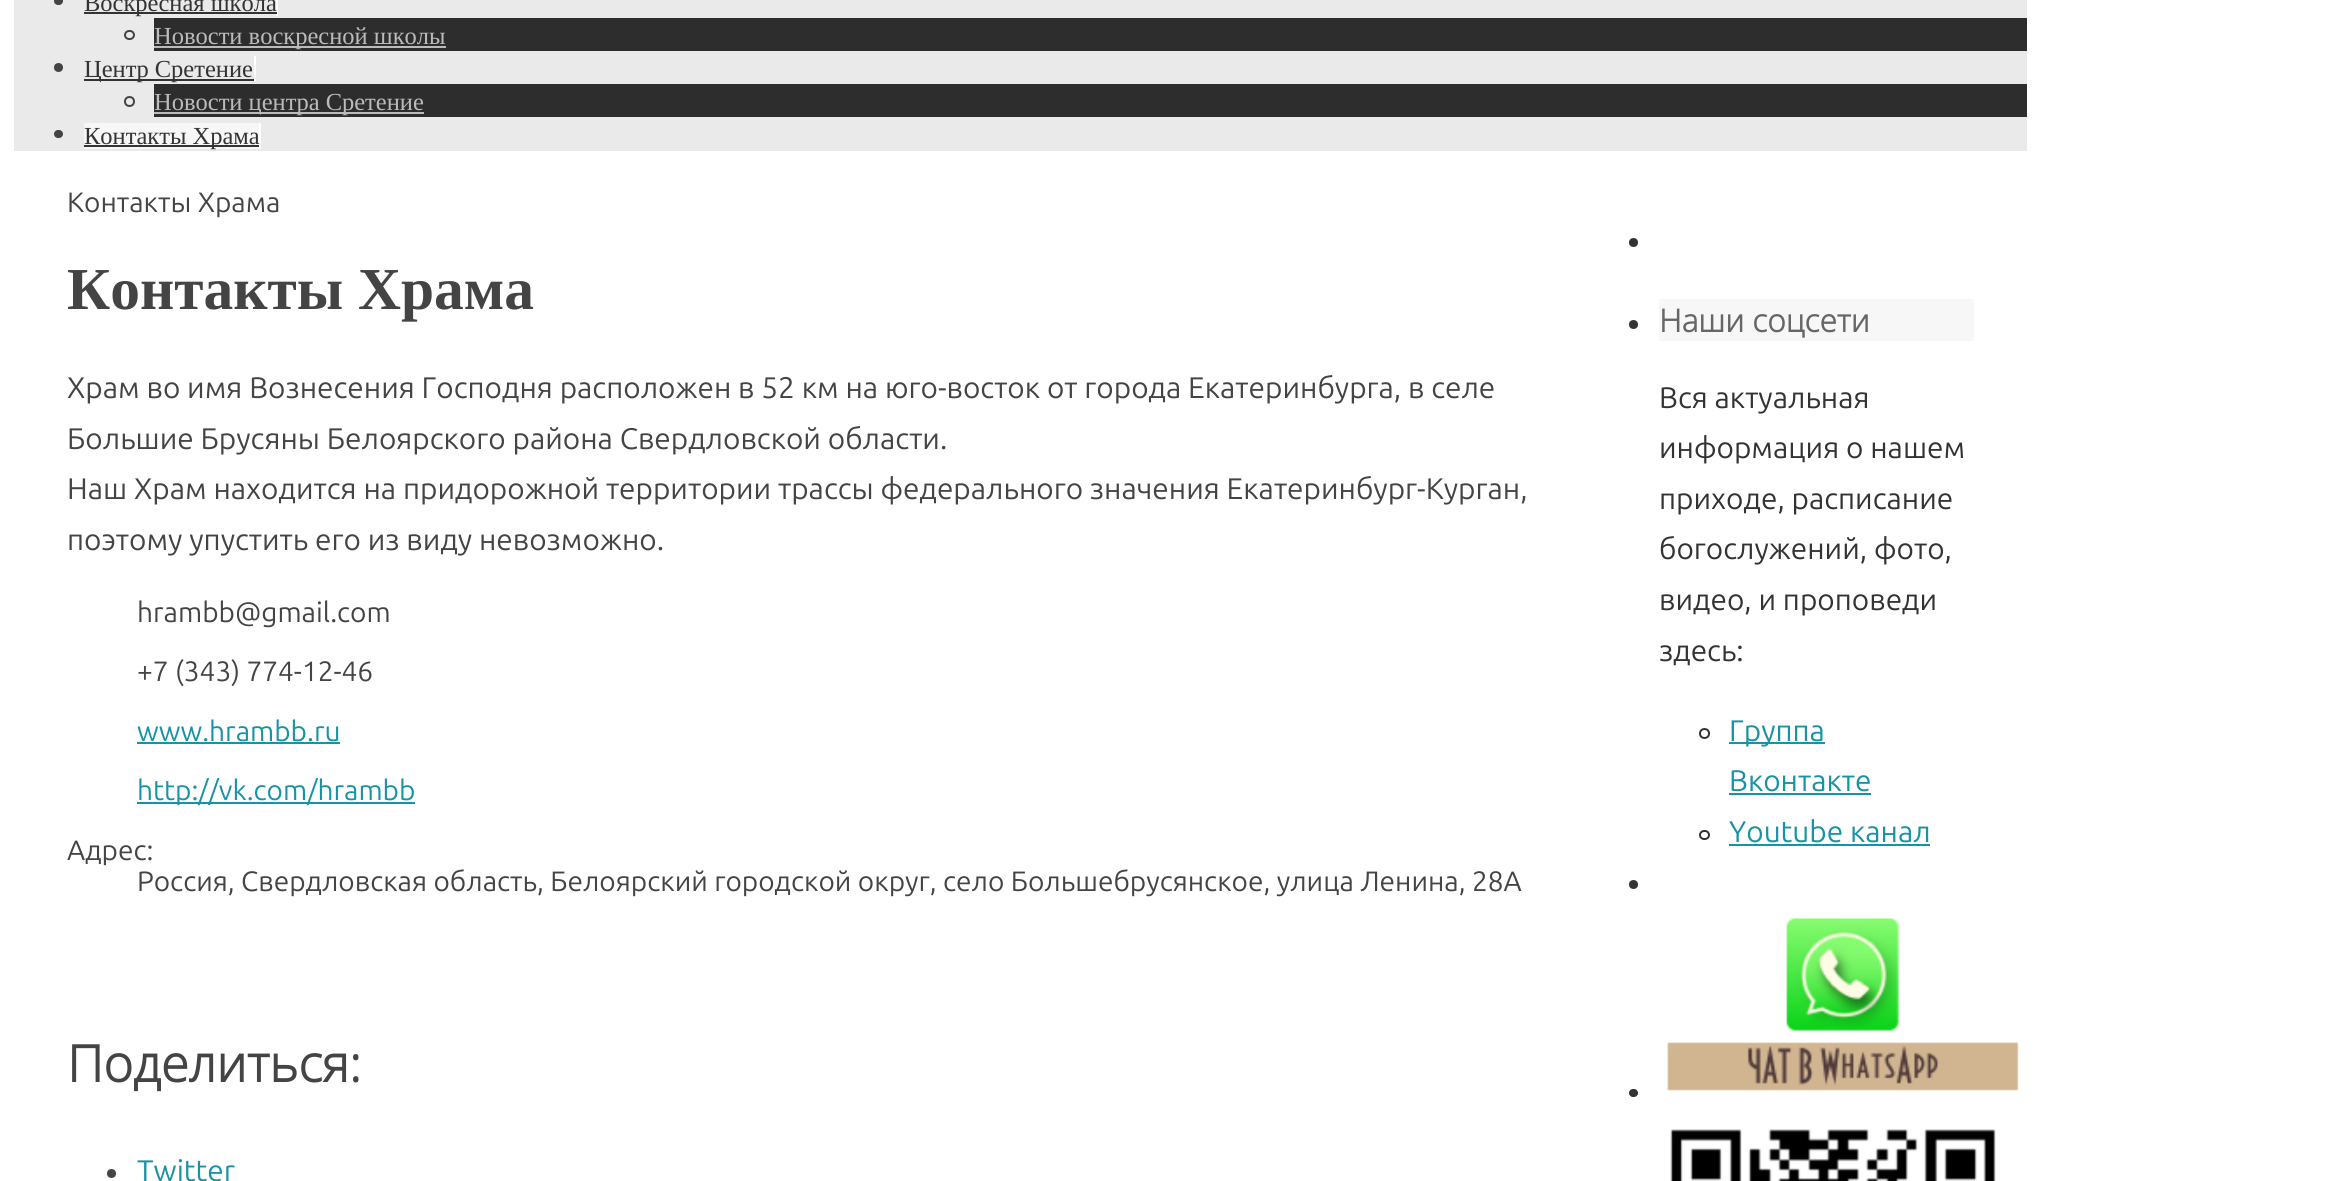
import math
import cairocffi as cairo

surface = cairo.ImageSurface(cairo.FORMAT_RGB24, 2330, 1181)
cr = cairo.Context(surface)
options = cairo.FontOptions()
options.set_hint_metrics(cairo.HINT_METRICS_OFF)
options.set_hint_style(cairo.HINT_STYLE_NONE)
cr.set_font_options(options)
cr.set_miter_limit(4)


def use_color(code):
    cr.set_source_rgb(*(v / 255 for v in bytes.fromhex(code[-6:])))


def round_rect(x, y, w, h, r):
    cr.new_sub_path()
    for i, (u, v) in enumerate([(x + w - r, y + h - r), (x + r, y + h - r), (x + r, y + r), (x + w - r, y + r)]):
        cr.arc(u, v, r, i * math.pi / 2, (i + 1) * math.pi / 2)
    cr.close_path()


def picture(path, x, y, w, h):
    cr.save()
    cr.set_source_surface(cairo.ImageSurface.create_from_png(path), x, y)
    cr.rectangle(x, y, w, h)
    cr.fill()
    cr.restore()


use_color("#ffffff")
cr.paint()
use_color("#eaeaea")
cr.rectangle(14, 0, 2013, 151)
cr.fill()
use_color("#444444")
round_rect(54, -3, 9, 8, 4)
cr.fill()
use_color("#ffffff")
cr.new_path()
cr.move_to(86, 16)
cr.line_to(278, 16)
cr.line_to(278, -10)
cr.line_to(276, -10)
cr.line_to(276, 16)
cr.close_path()
cr.fill()
use_color("#333333")
cr.rectangle(84, 12, 193, 2)
cr.fill()
cr.select_font_face("Liberation Serif")
cr.set_font_size(24.5)
cr.move_to(84, 11)
cr.show_text("Воскресная школа")
use_color("#2d2d2d")
cr.rectangle(154, 18, 1873, 33)
cr.fill()
round_rect(125, 31, 9, 8, 4)
use_color("#444444")
cr.stroke()
use_color("#bbbbbb")
cr.rectangle(154, 46, 292, 2)
cr.fill()
cr.move_to(154, 44)
cr.show_text("Новости воскресной школы")
use_color("#444444")
cr.new_path()
cr.arc(58.5, 67.5, 4.5, 0, 2 * math.pi)
cr.fill()
use_color("#333333")
cr.rectangle(84, 79, 170, 2)
cr.fill()
cr.move_to(84, 77)
cr.show_text("Центр Сретение")
use_color("#ffffff")
cr.rectangle(254, 56, 2, 26)
cr.fill()
use_color("#2d2d2d")
cr.rectangle(154, 84, 1873, 33)
cr.fill()
cr.arc(129.5, 101.5, 4.5, 0, 2 * math.pi)
use_color("#444444")
cr.stroke()
use_color("#bbbbbb")
cr.rectangle(154, 112, 270, 2)
cr.fill()
cr.move_to(154, 110)
cr.show_text("Новости центра Сретение")
use_color("#444444")
round_rect(54, 130, 9, 8, 4)
cr.fill()
use_color("#f7f7f7")
cr.rectangle(84, 123, 175, 26)
cr.fill()
use_color("#ffffff")
cr.new_path()
cr.move_to(86, 149)
cr.line_to(261, 149)
cr.line_to(261, 123)
cr.line_to(259, 123)
cr.line_to(259, 149)
cr.close_path()
cr.fill()
use_color("#333333")
cr.rectangle(84, 145, 175, 2)
cr.fill()
cr.move_to(84, 144)
cr.show_text("Контакты Храма")
cr.select_font_face("Ubuntu")
cr.set_font_size(28)
use_color("#444444")
cr.move_to(67, 212)
cr.show_text("Контакты Храма")
cr.select_font_face("Liberation Serif", cairo.FONT_SLANT_NORMAL, cairo.FONT_WEIGHT_BOLD)
cr.set_font_size(59.5)
cr.move_to(67, 309)
cr.show_text("Контакты Храма")
cr.select_font_face("Ubuntu")
cr.set_font_size(29.75)
cr.move_to(67, 398)
cr.show_text("Храм во имя Вознесения Господня расположен в 52 км на юго-восток от города Екатеринбурга, в селе")
cr.move_to(67, 449)
cr.show_text("Большие Брусяны Белоярского района Свердловской области.")
cr.move_to(67, 499)
cr.show_text("Наш Храм находится на придорожной территории трассы федерального значения Екатеринбург-Курган,")
cr.move_to(67, 550)
cr.show_text("поэтому упустить его из виду невозможно.")
cr.set_font_size(28)
cr.move_to(137, 622)
cr.show_text("hrambb@gmail.com")
cr.move_to(137, 681)
cr.show_text("+7 (343) 774-12-46")
use_color("#1693a5")
cr.move_to(137, 741)
cr.show_text("www.hrambb.ru")
cr.rectangle(137, 742, 203, 2)
cr.fill()
cr.rectangle(137, 802, 278, 2)
cr.fill()
cr.move_to(137, 800)
cr.show_text("http://vk.com/hrambb")
use_color("#444444")
cr.move_to(67, 860)
cr.show_text("Адрес:")
cr.move_to(137, 891)
cr.show_text("Россия, Свердловская область, Белоярский городской округ, село Большебрусянское, улица Ленина, 28А")
cr.select_font_face("Open Sans", cairo.FONT_SLANT_NORMAL, cairo.FONT_WEIGHT_BOLD)
cr.set_font_size(50.75)
cr.move_to(67, 1082)
cr.show_text("Поделиться:")
cr.new_path()
cr.arc(111.5, 1173.5, 4.5, 0, 2 * math.pi)
cr.fill()
cr.select_font_face("Ubuntu")
cr.set_font_size(29.75)
use_color("#1693a5")
cr.move_to(137, 1181)
cr.show_text("Twitter")
use_color("#333333")
cr.new_path()
cr.arc(1633.5, 242.5, 4.5, 0, 2 * math.pi)
cr.fill()
cr.arc(1633.5, 324.5, 4.5, 0, 2 * math.pi)
cr.fill()
use_color("#f7f7f7")
cr.rectangle(1659, 299, 315, 42)
cr.fill()
cr.select_font_face("Open Sans", cairo.FONT_SLANT_NORMAL, cairo.FONT_WEIGHT_BOLD)
cr.set_font_size(31.5)
use_color("#666666")
cr.move_to(1659, 332)
cr.show_text("Наши соцсети")
cr.select_font_face("Ubuntu")
cr.set_font_size(29.75)
use_color("#333333")
cr.move_to(1659, 408)
cr.show_text("Вся актуальная")
cr.move_to(1659, 458)
cr.show_text("информация о нашем")
cr.move_to(1659, 509)
cr.show_text("приходе, расписание")
cr.move_to(1659, 559)
cr.show_text("богослужений, фото,")
cr.move_to(1659, 610)
cr.show_text("видео, и проповеди")
cr.move_to(1659, 661)
cr.show_text("здесь:")
cr.new_path()
cr.arc(1704.5, 733.5, 4.5, 0, 2 * math.pi)
cr.stroke()
use_color("#1693a5")
cr.rectangle(1729, 742, 96, 2)
cr.fill()
cr.move_to(1729, 741)
cr.show_text("Группа")
cr.move_to(1729, 791)
cr.show_text("Вконтакте")
cr.rectangle(1729, 793, 142, 2)
cr.fill()
round_rect(1700, 831, 9, 8, 4)
use_color("#333333")
cr.stroke()
use_color("#1693a5")
cr.move_to(1729, 842)
cr.show_text("Youtube канал")
cr.rectangle(1729, 844, 201, 2)
cr.fill()
use_color("#333333")
cr.arc(1633.5, 884.5, 4.5, 0, 2 * math.pi)
cr.fill()
round_rect(1629, 1089, 9, 8, 4)
cr.fill()
picture("img1.png", 1667, 918, 352, 173)
picture("img2.png", 1670, 1129, 326, 52)
surface.write_to_png("result.png")
